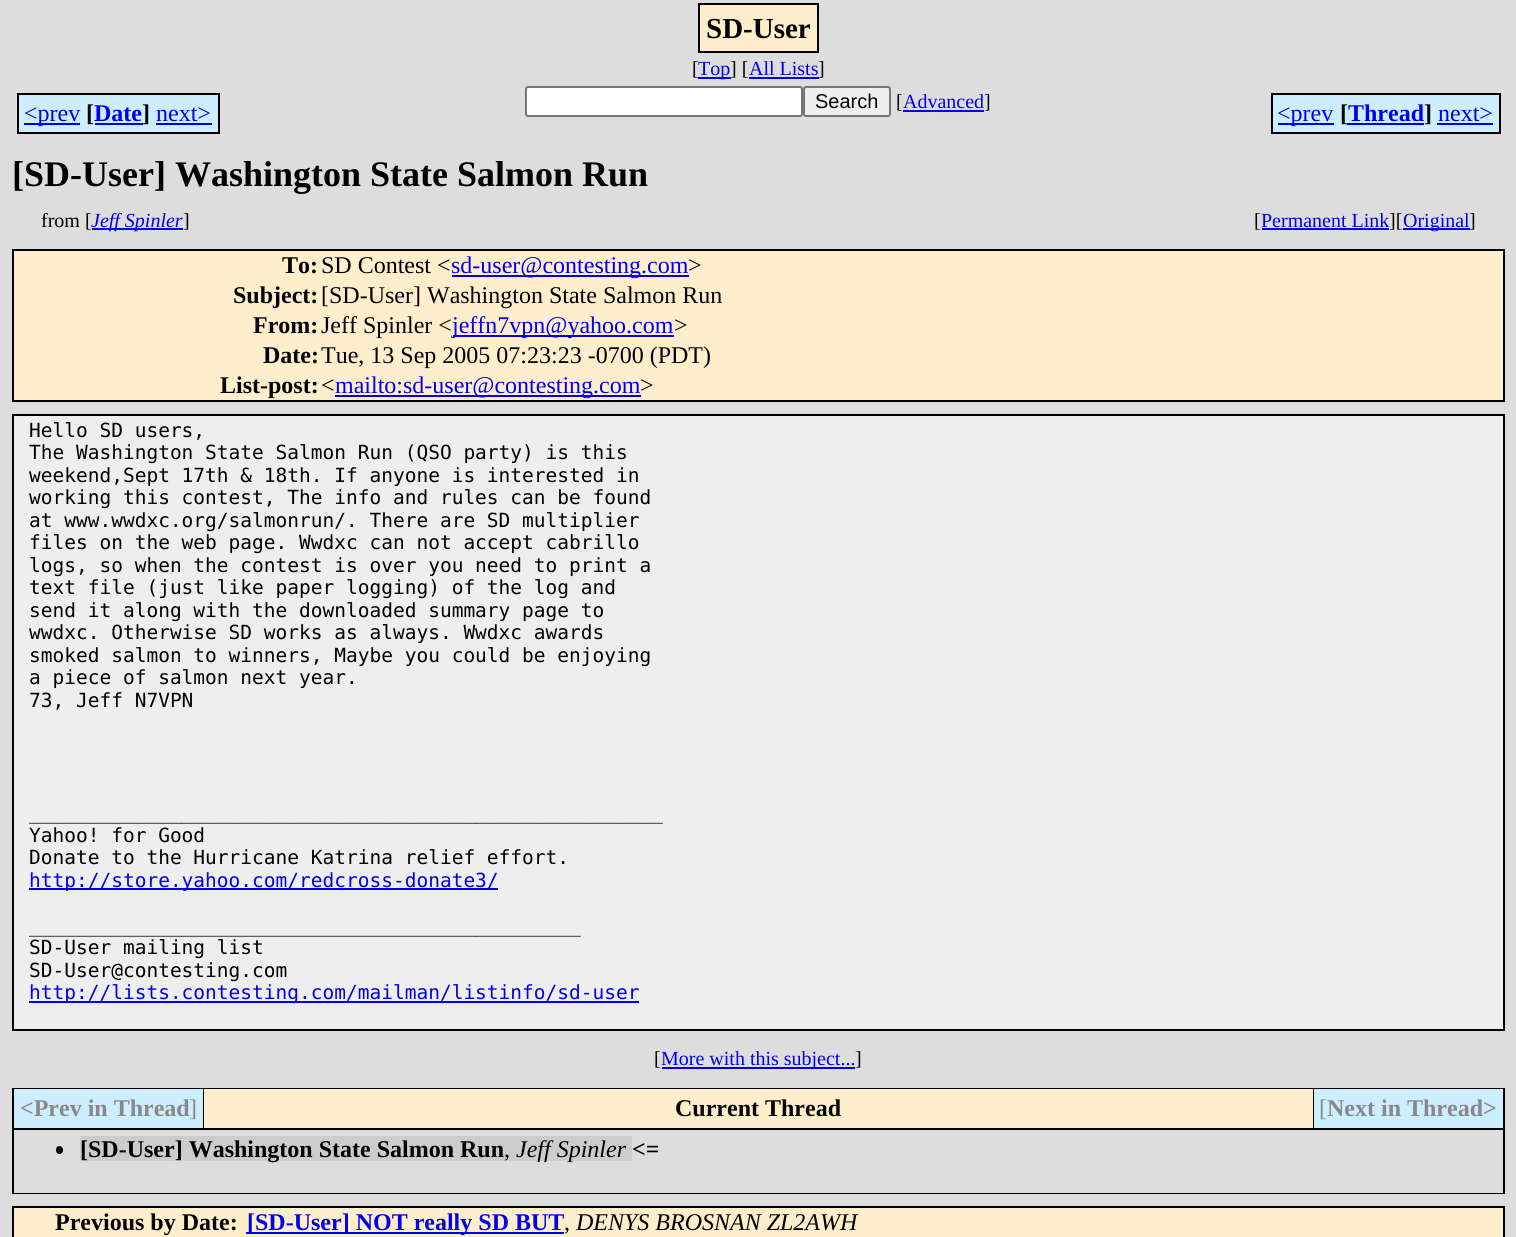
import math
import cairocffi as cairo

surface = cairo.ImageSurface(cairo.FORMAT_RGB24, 1516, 1237)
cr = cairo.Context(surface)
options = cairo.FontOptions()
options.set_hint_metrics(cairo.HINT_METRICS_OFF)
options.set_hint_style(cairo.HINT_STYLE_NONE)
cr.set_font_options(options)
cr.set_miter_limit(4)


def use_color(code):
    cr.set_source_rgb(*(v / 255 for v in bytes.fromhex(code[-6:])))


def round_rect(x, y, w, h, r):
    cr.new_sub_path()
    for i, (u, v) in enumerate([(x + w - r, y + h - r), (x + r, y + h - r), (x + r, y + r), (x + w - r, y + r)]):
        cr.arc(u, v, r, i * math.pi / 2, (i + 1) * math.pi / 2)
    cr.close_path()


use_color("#dddddd")
cr.paint()
use_color("#ffeecc")
cr.rectangle(699, 4, 119, 48)
cr.fill_preserve()
use_color("#000000")
cr.stroke()
cr.select_font_face("Liberation Serif", cairo.FONT_SLANT_NORMAL, cairo.FONT_WEIGHT_BOLD)
cr.set_font_size(29)
cr.move_to(706, 38)
cr.show_text("SD-User")
cr.select_font_face("Liberation Serif")
cr.set_font_size(20)
cr.move_to(692, 75)
cr.show_text("[")
use_color("#0000ee")
cr.rectangle(698, 77, 33, 2)
cr.fill()
cr.move_to(698, 75)
cr.show_text("Top")
use_color("#000000")
cr.move_to(730, 75)
cr.show_text("] [")
use_color("#0000ee")
cr.move_to(749, 75)
cr.show_text("All Lists")
use_color("#000000")
cr.move_to(818, 75)
cr.show_text("]")
use_color("#0000ee")
cr.rectangle(749, 77, 70, 2)
cr.fill()
use_color("#ffffff")
round_rect(526, 87, 276, 29, 2)
cr.fill_preserve()
use_color("#767676")
cr.stroke()
use_color("#efefef")
round_rect(804, 87, 86, 29, 2)
cr.fill_preserve()
use_color("#767676")
cr.stroke()
cr.select_font_face("Liberation Sans")
use_color("#000000")
cr.move_to(815, 108)
cr.show_text("Search")
cr.select_font_face("Liberation Serif")
cr.move_to(896, 108)
cr.show_text("[")
use_color("#0000ee")
cr.rectangle(903, 110, 81, 2)
cr.fill()
cr.move_to(903, 108)
cr.show_text("Advanced")
use_color("#000000")
cr.move_to(984, 108)
cr.show_text("]")
use_color("#cceeff")
cr.rectangle(19, 95, 61, 37)
cr.fill()
use_color("#0000ee")
cr.rectangle(24, 123, 56, 2)
cr.fill()
use_color("#cceeff")
cr.rectangle(80, 93, 6, 41)
cr.fill()
cr.set_font_size(24)
use_color("#0000ee")
cr.move_to(24, 121)
cr.show_text("<prev")
use_color("#000000")
cr.rectangle(17, 93, 63, 2)
cr.fill()
cr.rectangle(17, 132, 63, 2)
cr.fill()
cr.rectangle(17, 93, 2, 41)
cr.fill()
cr.rectangle(80, 132, 63, 2)
cr.fill()
use_color("#cceeff")
cr.rectangle(86, 95, 57, 37)
cr.fill()
cr.select_font_face("Liberation Serif", cairo.FONT_SLANT_NORMAL, cairo.FONT_WEIGHT_BOLD)
use_color("#000000")
cr.move_to(86, 121)
cr.show_text("[")
use_color("#0000ee")
cr.move_to(94, 121)
cr.show_text("Date")
use_color("#000000")
cr.rectangle(80, 93, 63, 2)
cr.fill()
use_color("#cceeff")
cr.rectangle(143, 93, 13, 41)
cr.fill()
use_color("#000000")
cr.rectangle(143, 93, 76, 2)
cr.fill()
cr.move_to(142, 121)
cr.show_text("]")
cr.rectangle(143, 132, 13, 2)
cr.fill()
use_color("#0000ee")
cr.rectangle(95, 123, 48, 2)
cr.fill()
use_color("#cceeff")
cr.rectangle(156, 95, 62, 37)
cr.fill()
cr.select_font_face("Liberation Serif")
use_color("#0000ee")
cr.move_to(156, 121)
cr.show_text("next>")
use_color("#000000")
cr.rectangle(218, 93, 2, 41)
cr.fill()
cr.rectangle(156, 132, 63, 2)
cr.fill()
use_color("#0000ee")
cr.rectangle(156, 123, 56, 2)
cr.fill()
use_color("#cceeff")
cr.rectangle(1273, 95, 61, 37)
cr.fill()
use_color("#0000ee")
cr.rectangle(1278, 123, 56, 2)
cr.fill()
cr.move_to(1277, 121)
cr.show_text("<prev")
use_color("#000000")
cr.rectangle(1271, 93, 63, 2)
cr.fill()
cr.rectangle(1271, 132, 63, 2)
cr.fill()
cr.rectangle(1271, 93, 2, 41)
cr.fill()
use_color("#cceeff")
cr.rectangle(1334, 93, 13, 41)
cr.fill()
use_color("#000000")
cr.rectangle(1334, 132, 90, 2)
cr.fill()
cr.select_font_face("Liberation Serif", cairo.FONT_SLANT_NORMAL, cairo.FONT_WEIGHT_BOLD)
cr.move_to(1340, 121)
cr.show_text("[")
use_color("#cceeff")
cr.rectangle(1347, 95, 77, 37)
cr.fill()
use_color("#0000ee")
cr.rectangle(1347, 123, 77, 2)
cr.fill()
cr.move_to(1348, 121)
cr.show_text("Thread")
use_color("#000000")
cr.rectangle(1334, 93, 90, 2)
cr.fill()
use_color("#cceeff")
cr.rectangle(1424, 93, 13, 41)
cr.fill()
use_color("#000000")
cr.rectangle(1424, 93, 76, 2)
cr.fill()
cr.move_to(1424, 121)
cr.show_text("]")
cr.rectangle(1424, 132, 13, 2)
cr.fill()
use_color("#cceeff")
cr.rectangle(1437, 95, 62, 37)
cr.fill()
cr.select_font_face("Liberation Serif")
use_color("#0000ee")
cr.move_to(1438, 121)
cr.show_text("next>")
use_color("#000000")
cr.rectangle(1499, 93, 2, 41)
cr.fill()
cr.rectangle(1437, 132, 63, 2)
cr.fill()
use_color("#0000ee")
cr.rectangle(1437, 123, 56, 2)
cr.fill()
cr.select_font_face("Liberation Serif", cairo.FONT_SLANT_NORMAL, cairo.FONT_WEIGHT_BOLD)
cr.set_font_size(36)
use_color("#000000")
cr.move_to(12, 186)
cr.show_text("[SD-User] Washington State Salmon Run")
cr.select_font_face("Liberation Serif")
cr.set_font_size(20)
cr.move_to(41, 227)
cr.show_text("from [")
use_color("#0000ee")
cr.rectangle(92, 228, 91, 2)
cr.fill()
cr.select_font_face("Liberation Serif", cairo.FONT_SLANT_ITALIC)
cr.move_to(91, 227)
cr.show_text("Jeff Spinler")
cr.select_font_face("Liberation Serif")
use_color("#000000")
cr.move_to(183, 227)
cr.show_text("]")
cr.move_to(1254, 227)
cr.show_text("[")
use_color("#0000ee")
cr.rectangle(1262, 228, 127, 2)
cr.fill()
cr.move_to(1261, 227)
cr.show_text("Permanent Link")
use_color("#000000")
cr.move_to(1389, 227)
cr.show_text("][")
use_color("#0000ee")
cr.rectangle(1403, 228, 67, 2)
cr.fill()
cr.move_to(1403, 227)
cr.show_text("Original")
use_color("#000000")
cr.move_to(1469, 227)
cr.show_text("]")
use_color("#ffeecc")
cr.rectangle(13, 250, 1491, 151)
cr.fill_preserve()
use_color("#000000")
cr.stroke()
cr.select_font_face("Liberation Serif", cairo.FONT_SLANT_NORMAL, cairo.FONT_WEIGHT_BOLD)
cr.set_font_size(24)
cr.move_to(282, 273)
cr.show_text("To:")
cr.select_font_face("Liberation Serif")
cr.move_to(321, 273)
cr.show_text("SD Contest <")
use_color("#0000ee")
cr.rectangle(452, 275, 237, 2)
cr.fill()
cr.move_to(451, 273)
cr.show_text("sd-user@contesting.com")
use_color("#000000")
cr.move_to(688, 273)
cr.show_text(">")
cr.select_font_face("Liberation Serif", cairo.FONT_SLANT_NORMAL, cairo.FONT_WEIGHT_BOLD)
cr.move_to(233, 303)
cr.show_text("Subject:")
cr.select_font_face("Liberation Serif")
cr.move_to(321, 303)
cr.show_text("[SD-User] Washington State Salmon Run")
cr.select_font_face("Liberation Serif", cairo.FONT_SLANT_NORMAL, cairo.FONT_WEIGHT_BOLD)
cr.move_to(253, 333)
cr.show_text("From:")
cr.select_font_face("Liberation Serif")
cr.move_to(321, 333)
cr.show_text("Jeff Spinler <")
use_color("#0000ee")
cr.rectangle(453, 335, 221, 2)
cr.fill()
cr.move_to(452, 333)
cr.show_text("jeffn7vpn@yahoo.com")
use_color("#000000")
cr.move_to(674, 333)
cr.show_text(">")
cr.select_font_face("Liberation Serif", cairo.FONT_SLANT_NORMAL, cairo.FONT_WEIGHT_BOLD)
cr.move_to(263, 363)
cr.show_text("Date:")
cr.select_font_face("Liberation Serif")
cr.move_to(321, 363)
cr.show_text("Tue, 13 Sep 2005 07:23:23 -0700 (PDT)")
cr.select_font_face("Liberation Serif", cairo.FONT_SLANT_NORMAL, cairo.FONT_WEIGHT_BOLD)
cr.move_to(220, 393)
cr.show_text("List-post:")
cr.select_font_face("Liberation Serif")
cr.move_to(321, 393)
cr.show_text("<")
use_color("#0000ee")
cr.rectangle(335, 395, 306, 2)
cr.fill()
cr.move_to(335, 393)
cr.show_text("mailto:sd-user@contesting.com")
use_color("#000000")
cr.move_to(640, 393)
cr.show_text(">")
use_color("#eeeeee")
cr.rectangle(13, 415, 1491, 615)
cr.fill_preserve()
use_color("#000000")
cr.stroke()
cr.select_font_face("DejaVu Sans Mono")
cr.set_font_size(19.5)
cr.move_to(29, 437)
cr.show_text("Hello SD users,")
cr.move_to(29, 459)
cr.show_text("The Washington State Salmon Run (QSO party) is this")
cr.move_to(29, 482)
cr.show_text("weekend,Sept 17th & 18th. If anyone is interested in")
cr.move_to(29, 504)
cr.show_text("working this contest, The info and rules can be found")
cr.move_to(29, 527)
cr.show_text("at www.wwdxc.org/salmonrun/. There are SD multiplier")
cr.move_to(29, 549)
cr.show_text("files on the web page. Wwdxc can not accept cabrillo")
cr.move_to(29, 572)
cr.show_text("logs, so when the contest is over you need to print a")
cr.move_to(29, 594)
cr.show_text("text file (just like paper logging) of the log and")
cr.move_to(29, 617)
cr.show_text("send it along with the downloaded summary page to")
cr.move_to(29, 639)
cr.show_text("wwdxc. Otherwise SD works as always. Wwdxc awards")
cr.move_to(29, 662)
cr.show_text("smoked salmon to winners, Maybe you could be enjoying")
cr.move_to(29, 684)
cr.show_text("a piece of salmon next year.")
cr.move_to(29, 707)
cr.show_text("73, Jeff N7VPN")
cr.move_to(29, 819)
cr.show_text("______________________________________________________")
cr.move_to(29, 842)
cr.show_text("Yahoo! for Good")
cr.move_to(29, 864)
cr.show_text("Donate to the Hurricane Katrina relief effort.")
use_color("#0000ee")
cr.rectangle(29, 888, 469, 2)
cr.fill()
cr.move_to(29, 887)
cr.show_text("http://store.yahoo.com/redcross-donate3/")
use_color("#000000")
cr.move_to(29, 932)
cr.show_text("_______________________________________________")
cr.move_to(29, 954)
cr.show_text("SD-User mailing list")
cr.move_to(29, 977)
cr.show_text("SD-User@contesting.com")
use_color("#0000ee")
cr.rectangle(29, 1001, 610, 2)
cr.fill()
cr.move_to(29, 999)
cr.show_text("http://lists.contesting.com/mailman/listinfo/sd-user")
cr.select_font_face("Liberation Serif")
cr.set_font_size(20)
use_color("#000000")
cr.move_to(654, 1065)
cr.show_text("[")
use_color("#0000ee")
cr.rectangle(662, 1067, 193, 2)
cr.fill()
cr.move_to(661, 1065)
cr.show_text("More with this subject...")
use_color("#000000")
cr.move_to(855, 1065)
cr.show_text("]")
cr.rectangle(12, 1088, 1493, 106)
cr.fill()
use_color("#cceeff")
cr.rectangle(14, 1089, 189, 39)
cr.fill()
cr.select_font_face("Liberation Serif", cairo.FONT_SLANT_NORMAL, cairo.FONT_WEIGHT_BOLD)
cr.set_font_size(24)
use_color("#888888")
cr.move_to(20, 1116)
cr.show_text("<Prev in Thread")
cr.select_font_face("Liberation Serif")
cr.move_to(189, 1116)
cr.show_text("]")
use_color("#ffeecc")
cr.rectangle(204, 1089, 1109, 39)
cr.fill()
cr.select_font_face("Liberation Serif", cairo.FONT_SLANT_NORMAL, cairo.FONT_WEIGHT_BOLD)
use_color("#000000")
cr.move_to(675, 1116)
cr.show_text("Current Thread")
use_color("#cceeff")
cr.rectangle(1314, 1089, 189, 39)
cr.fill()
cr.select_font_face("Liberation Serif")
use_color("#888888")
cr.move_to(1319, 1116)
cr.show_text("[")
cr.select_font_face("Liberation Serif", cairo.FONT_SLANT_NORMAL, cairo.FONT_WEIGHT_BOLD)
cr.move_to(1327, 1116)
cr.show_text("Next in Thread>")
use_color("#dddddd")
cr.rectangle(14, 1130, 1489, 63)
cr.fill()
use_color("#000000")
round_rect(56, 1146, 7, 8, 3.5)
cr.fill()
use_color("#cccccc")
cr.rectangle(80, 1136, 552, 25)
cr.fill()
use_color("#000000")
cr.move_to(80, 1157)
cr.show_text("[SD-User] Washington State Salmon Run")
cr.select_font_face("Liberation Serif", cairo.FONT_SLANT_ITALIC)
cr.move_to(516, 1157)
cr.show_text("Jeff Spinler")
cr.select_font_face("Liberation Serif", cairo.FONT_SLANT_NORMAL, cairo.FONT_WEIGHT_BOLD)
cr.move_to(632, 1157)
cr.show_text("<=")
cr.select_font_face("Liberation Serif")
cr.move_to(504, 1157)
cr.show_text(",")
use_color("#ffeecc")
cr.rectangle(13, 1207, 1491, 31)
cr.fill_preserve()
use_color("#000000")
cr.stroke()
cr.select_font_face("Liberation Serif", cairo.FONT_SLANT_NORMAL, cairo.FONT_WEIGHT_BOLD)
cr.move_to(55, 1230)
cr.show_text("Previous by Date:")
use_color("#0000ee")
cr.rectangle(246, 1232, 318, 2)
cr.fill()
cr.move_to(247, 1230)
cr.show_text("[SD-User] NOT really SD BUT")
cr.select_font_face("Liberation Serif")
use_color("#000000")
cr.move_to(564, 1230)
cr.show_text(",")
cr.select_font_face("Liberation Serif", cairo.FONT_SLANT_ITALIC)
cr.move_to(576, 1230)
cr.show_text("DENYS BROSNAN ZL2AWH")
surface.write_to_png("result.png")
